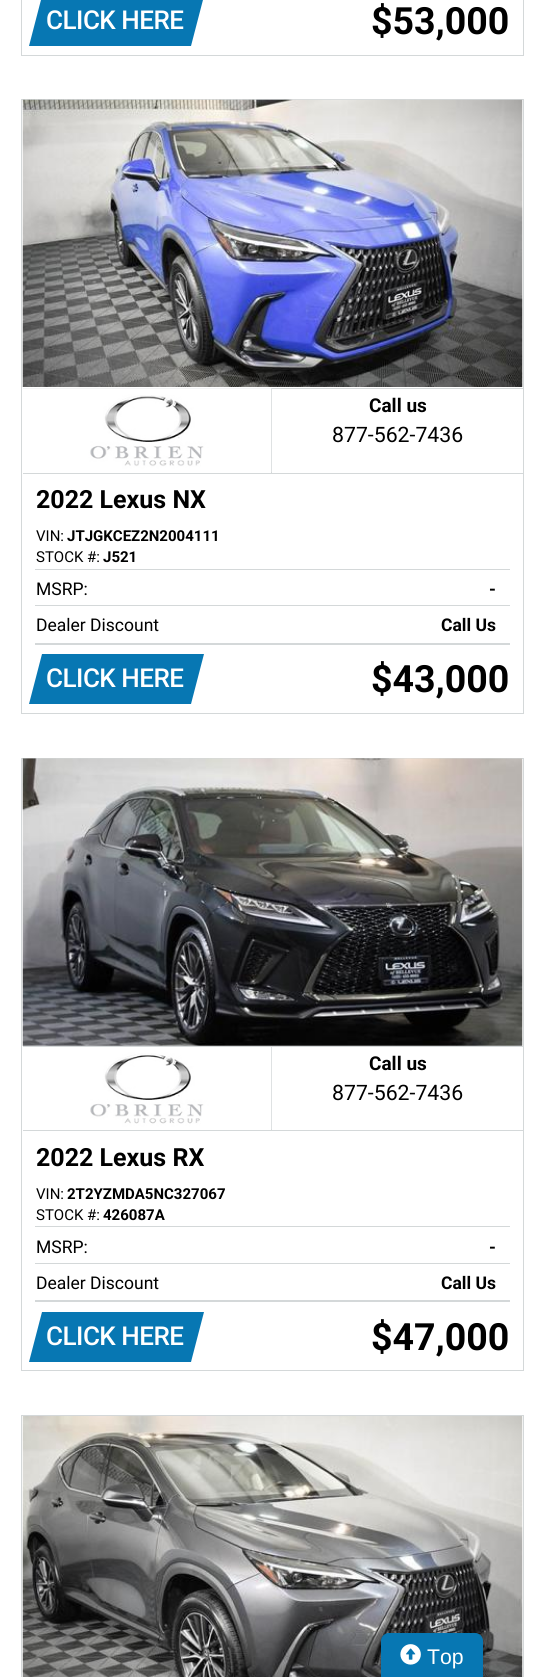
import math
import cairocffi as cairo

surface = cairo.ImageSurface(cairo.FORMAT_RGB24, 545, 1677)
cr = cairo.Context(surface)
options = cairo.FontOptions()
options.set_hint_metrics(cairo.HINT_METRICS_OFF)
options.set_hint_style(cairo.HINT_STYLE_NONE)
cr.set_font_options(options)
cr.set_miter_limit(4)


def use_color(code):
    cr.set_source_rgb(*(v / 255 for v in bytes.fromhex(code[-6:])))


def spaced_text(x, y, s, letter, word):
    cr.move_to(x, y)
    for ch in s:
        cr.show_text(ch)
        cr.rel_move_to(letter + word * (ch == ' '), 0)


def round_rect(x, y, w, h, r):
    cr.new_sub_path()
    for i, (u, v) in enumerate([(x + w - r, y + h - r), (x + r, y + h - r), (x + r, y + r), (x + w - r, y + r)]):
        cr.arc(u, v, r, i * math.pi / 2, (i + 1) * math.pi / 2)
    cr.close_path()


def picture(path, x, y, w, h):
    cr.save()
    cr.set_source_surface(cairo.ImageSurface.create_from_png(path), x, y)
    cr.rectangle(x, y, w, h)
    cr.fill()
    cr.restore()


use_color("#ffffff")
cr.paint()
cr.rectangle(21.5, -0.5, 502, 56)
use_color("#d4d8d9")
cr.set_line_width(1)
cr.stroke()
use_color("#0777b3")
cr.new_path()
cr.move_to(42, -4)
cr.line_to(204, -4)
cr.line_to(191, 46)
cr.line_to(29, 46)
cr.close_path()
cr.fill()
cr.select_font_face("Roboto Medium")
cr.set_font_size(26)
use_color("#ffffff")
spaced_text(46, 29, "CLICK HERE", -0.5, 0)
cr.select_font_face("Roboto", cairo.FONT_SLANT_NORMAL, cairo.FONT_WEIGHT_BOLD)
cr.set_font_size(37.5)
use_color("#000000")
cr.move_to(371, 34)
cr.show_text("$53,000")
cr.rectangle(21.5, 99.5, 502, 614)
use_color("#d4d8d9")
cr.stroke()
picture("img1.png", 22, 99, 501, 288)
cr.rectangle(23, 388, 500, 1)
cr.fill()
cr.rectangle(271, 388, 1, 86)
cr.fill()
cr.rectangle(23, 473, 500, 1)
cr.fill()
picture("img2.png", 23, 388, 249, 84)
cr.set_font_size(19)
use_color("#000000")
cr.move_to(369, 412)
cr.show_text("Call us")
cr.select_font_face("Roboto")
cr.set_font_size(21.25)
cr.move_to(332, 442)
cr.show_text("877-562-7436")
cr.select_font_face("Roboto", cairo.FONT_SLANT_NORMAL, cairo.FONT_WEIGHT_BOLD)
cr.set_font_size(25)
cr.move_to(36, 508)
cr.show_text("2022 Lexus NX")
cr.select_font_face("Roboto")
cr.set_font_size(15)
cr.move_to(36, 541)
cr.show_text("VIN:")
cr.select_font_face("Roboto", cairo.FONT_SLANT_NORMAL, cairo.FONT_WEIGHT_BOLD)
cr.move_to(67, 541)
cr.show_text("JTJGKCEZ2N2004111")
cr.select_font_face("Roboto")
cr.move_to(36, 562)
cr.show_text("STOCK #:")
cr.select_font_face("Roboto", cairo.FONT_SLANT_NORMAL, cairo.FONT_WEIGHT_BOLD)
cr.move_to(103, 562)
cr.show_text("J521")
use_color("#d4d8d9")
cr.rectangle(35, 569, 475, 1)
cr.fill()
cr.rectangle(35, 605, 475, 1)
cr.fill()
cr.select_font_face("Roboto")
cr.set_font_size(17.5)
use_color("#000000")
cr.move_to(36, 595)
cr.show_text("MSRP:")
cr.select_font_face("Roboto", cairo.FONT_SLANT_NORMAL, cairo.FONT_WEIGHT_BOLD)
cr.move_to(489, 595)
cr.show_text("-")
use_color("#d4d8d9")
cr.rectangle(35, 643, 475, 2)
cr.fill()
cr.select_font_face("Roboto")
use_color("#000000")
cr.move_to(36, 631)
cr.show_text("Dealer Discount")
cr.select_font_face("Roboto", cairo.FONT_SLANT_NORMAL, cairo.FONT_WEIGHT_BOLD)
cr.move_to(441, 631)
cr.show_text("Call Us")
use_color("#0777b3")
cr.new_path()
cr.move_to(42, 654)
cr.line_to(204, 654)
cr.line_to(191, 704)
cr.line_to(29, 704)
cr.close_path()
cr.fill()
cr.select_font_face("Roboto Medium")
cr.set_font_size(26)
use_color("#ffffff")
spaced_text(46, 687, "CLICK HERE", -0.5, 0)
cr.select_font_face("Roboto", cairo.FONT_SLANT_NORMAL, cairo.FONT_WEIGHT_BOLD)
cr.set_font_size(37.5)
use_color("#000000")
cr.move_to(371, 692)
cr.show_text("$43,000")
cr.rectangle(21.5, 758.5, 502, 612)
use_color("#d4d8d9")
cr.stroke()
picture("img3.png", 22, 758, 501, 288)
cr.rectangle(23, 1046, 500, 1)
cr.fill()
cr.rectangle(271, 1046, 1, 85)
cr.fill()
cr.rectangle(23, 1130, 500, 1)
cr.fill()
picture("img4.png", 90, 1047, 182, 83)
cr.set_font_size(19)
use_color("#000000")
cr.move_to(369, 1070)
cr.show_text("Call us")
cr.select_font_face("Roboto")
cr.set_font_size(21.25)
cr.move_to(332, 1100)
cr.show_text("877-562-7436")
cr.select_font_face("Roboto", cairo.FONT_SLANT_NORMAL, cairo.FONT_WEIGHT_BOLD)
cr.set_font_size(25)
cr.move_to(36, 1166)
cr.show_text("2022 Lexus RX")
cr.select_font_face("Roboto")
cr.set_font_size(15)
cr.move_to(36, 1199)
cr.show_text("VIN:")
cr.select_font_face("Roboto", cairo.FONT_SLANT_NORMAL, cairo.FONT_WEIGHT_BOLD)
cr.move_to(67, 1199)
cr.show_text("2T2YZMDA5NC327067")
cr.select_font_face("Roboto")
cr.move_to(36, 1220)
cr.show_text("STOCK #:")
cr.select_font_face("Roboto", cairo.FONT_SLANT_NORMAL, cairo.FONT_WEIGHT_BOLD)
cr.move_to(103, 1220)
cr.show_text("426087A")
use_color("#d4d8d9")
cr.rectangle(35, 1226, 475, 1)
cr.fill()
cr.rectangle(35, 1263, 475, 1)
cr.fill()
cr.select_font_face("Roboto")
cr.set_font_size(17.5)
use_color("#000000")
cr.move_to(36, 1253)
cr.show_text("MSRP:")
cr.select_font_face("Roboto", cairo.FONT_SLANT_NORMAL, cairo.FONT_WEIGHT_BOLD)
cr.move_to(489, 1253)
cr.show_text("-")
use_color("#d4d8d9")
cr.rectangle(35, 1300, 475, 2)
cr.fill()
cr.select_font_face("Roboto")
use_color("#000000")
cr.move_to(36, 1289)
cr.show_text("Dealer Discount")
cr.select_font_face("Roboto", cairo.FONT_SLANT_NORMAL, cairo.FONT_WEIGHT_BOLD)
cr.move_to(441, 1289)
cr.show_text("Call Us")
use_color("#0777b3")
cr.new_path()
cr.move_to(42, 1312)
cr.line_to(204, 1312)
cr.line_to(191, 1362)
cr.line_to(29, 1362)
cr.close_path()
cr.fill()
cr.select_font_face("Roboto Medium")
cr.set_font_size(26)
use_color("#ffffff")
spaced_text(46, 1345, "CLICK HERE", -0.5, 0)
cr.select_font_face("Roboto", cairo.FONT_SLANT_NORMAL, cairo.FONT_WEIGHT_BOLD)
cr.set_font_size(37.5)
use_color("#000000")
cr.move_to(371, 1350)
cr.show_text("$47,000")
cr.rectangle(21.5, 1415.5, 502, 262)
use_color("#d4d8d9")
cr.stroke()
picture("img5.png", 22, 1416, 501, 261)
use_color("#0777b3")
round_rect(381.5, 1633.5, 101, 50, 7.5)
cr.fill_preserve()
cr.stroke()
picture("img6.png", 400, 1644, 21, 21)
cr.select_font_face("Liberation Sans")
cr.set_font_size(21.25)
use_color("#ffffff")
cr.move_to(427, 1664)
cr.show_text("Top")
surface.write_to_png("result.png")
